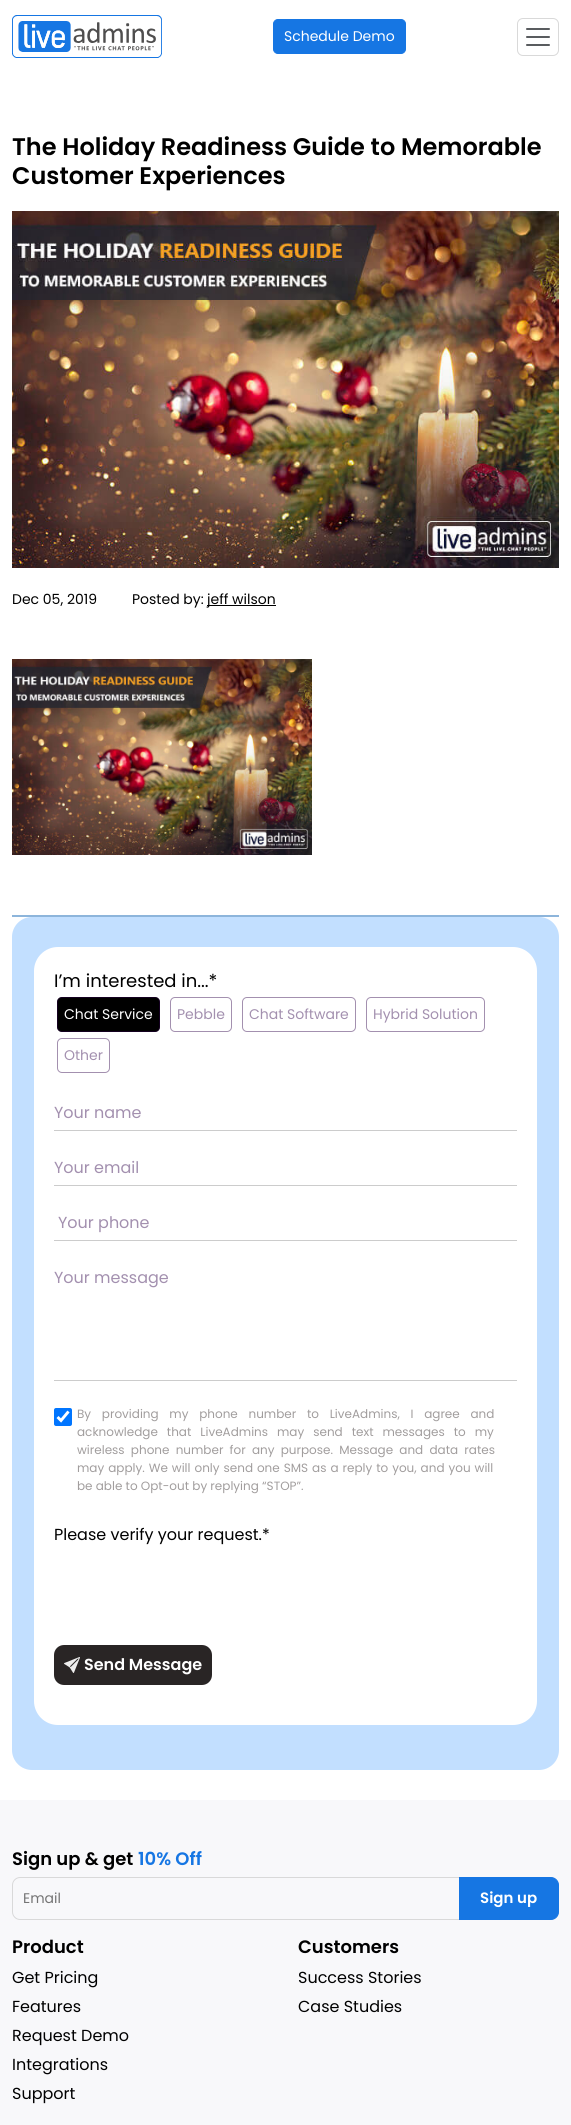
import math
import cairocffi as cairo

surface = cairo.ImageSurface(cairo.FORMAT_RGB24, 571, 2125)
cr = cairo.Context(surface)
options = cairo.FontOptions()
options.set_hint_metrics(cairo.HINT_METRICS_OFF)
options.set_hint_style(cairo.HINT_STYLE_NONE)
cr.set_font_options(options)
cr.set_miter_limit(4)


def use_color(code):
    cr.set_source_rgb(*(v / 255 for v in bytes.fromhex(code[-6:])))


def spaced_text(x, y, s, letter, word):
    cr.move_to(x, y)
    for ch in s:
        cr.show_text(ch)
        cr.rel_move_to(letter + word * (ch == ' '), 0)


def round_rect(x, y, w, h, r):
    cr.new_sub_path()
    for i, (u, v) in enumerate([(x + w - r, y + h - r), (x + r, y + h - r), (x + r, y + r), (x + w - r, y + r)]):
        cr.arc(u, v, r, i * math.pi / 2, (i + 1) * math.pi / 2)
    cr.close_path()


def picture(path, x, y, w, h):
    cr.save()
    cr.set_source_surface(cairo.ImageSurface.create_from_png(path), x, y)
    cr.rectangle(x, y, w, h)
    cr.fill()
    cr.restore()


use_color("#ffffff")
cr.paint()
picture("img1.png", 12, 15, 150, 43)
use_color("#1676e3")
round_rect(273.5, 19.5, 132, 34, 4.5)
cr.fill_preserve()
cr.set_line_width(1)
cr.stroke()
cr.select_font_face("Poppins")
cr.set_font_size(14)
use_color("#ffffff")
cr.move_to(284, 41)
cr.show_text("Schedule Demo")
round_rect(517.5, 18.5, 41, 37, 5.5)
use_color("#d9d9d9")
cr.stroke()
picture("img2.png", 526, 28, 24, 18)
use_color("#8db5db")
cr.rectangle(12, 915, 547, 2)
cr.fill()
cr.select_font_face("Poppins SemiBold")
cr.set_font_size(24)
use_color("#000000")
cr.move_to(12, 155)
cr.show_text("The Holiday Readiness Guide to Memorable")
cr.move_to(12, 184)
cr.show_text("Customer Experiences")
picture("img3.png", 12, 211, 547, 357)
cr.select_font_face("Poppins")
cr.set_font_size(14)
cr.move_to(12, 604)
cr.show_text("Dec 05, 2019")
cr.move_to(132, 604)
cr.show_text("Posted by:")
cr.rectangle(207, 605, 69, 1)
cr.fill()
cr.move_to(207, 604)
cr.show_text("jeff wilson")
picture("img4.png", 12, 659, 300, 196)
use_color("#c2dfff")
round_rect(12, 917, 547, 853, 20)
cr.fill()
use_color("#ffffff")
round_rect(34, 947, 503, 778, 24)
cr.fill()
cr.set_font_size(18)
use_color("#000000")
cr.move_to(54, 987)
cr.show_text("I’m interested in...*")
round_rect(57, 997, 103, 35, 5)
cr.fill()
round_rect(57.5, 997.5, 102, 34, 4.5)
cr.set_source_rgba(0.18, 0.008, 0.286, 0.44)
cr.stroke()
cr.set_font_size(14)
use_color("#ffffff")
cr.move_to(64, 1019)
cr.show_text("Chat Service")
round_rect(170.5, 997.5, 61, 34, 4.5)
use_color("#a390af")
cr.stroke()
cr.move_to(177, 1019)
cr.show_text("Pebble")
round_rect(242.5, 997.5, 113, 34, 4.5)
cr.stroke()
cr.move_to(249, 1019)
cr.show_text("Chat Software")
round_rect(366.5, 997.5, 118, 34, 4.5)
cr.stroke()
cr.move_to(373, 1019)
cr.show_text("Hybrid Solution")
round_rect(57.5, 1038.5, 52, 34, 4.5)
cr.stroke()
cr.move_to(64, 1060)
cr.show_text("Other")
use_color("#cccccc")
cr.rectangle(54, 1130, 463, 1)
cr.fill()
cr.set_font_size(16)
use_color("#a390af")
cr.move_to(54, 1118)
cr.show_text("Your name")
use_color("#cccccc")
cr.rectangle(54, 1185, 463, 1)
cr.fill()
use_color("#a390af")
cr.move_to(54, 1173)
cr.show_text("Your email")
use_color("#cccccc")
cr.rectangle(54, 1240, 463, 1)
cr.fill()
use_color("#a390af")
cr.move_to(58, 1228)
cr.show_text("Your phone")
use_color("#cccccc")
cr.rectangle(54, 1380, 463, 1)
cr.fill()
use_color("#a390af")
cr.move_to(54, 1283)
cr.show_text("Your message")
use_color("#0075ff")
round_rect(54, 1408, 18, 18, 2)
cr.fill()
cr.new_path()
cr.move_to(57.5, 1417)
cr.line_to(61, 1420.5)
cr.line_to(68.5, 1411.5)
use_color("#ffffff")
cr.set_line_width(2.9)
cr.stroke()
cr.set_font_size(12)
use_color("#a19d9d")
spaced_text(77, 1418, "By providing my phone number to LiveAdmins, I agree and", 0, 7.5)
spaced_text(77, 1436, "acknowledge that LiveAdmins may send text messages to my", 0, 5.75)
spaced_text(77, 1454, "wireless phone number for any purpose. Message and data rates", 0, 3)
spaced_text(77, 1472, "may apply. We will only send one SMS as a reply to you, and you will", 0, 0.75)
cr.move_to(77, 1490)
cr.show_text("be able to Opt-out by replying “STOP”.")
cr.set_font_size(16)
use_color("#000000")
cr.move_to(54, 1540)
cr.show_text("Please verify your request.*")
use_color("#292525")
round_rect(54, 1645, 158, 40, 10)
cr.fill()
picture("img5.png", 64, 1657, 16, 16)
cr.select_font_face("Poppins SemiBold")
use_color("#ffffff")
cr.move_to(84, 1670)
cr.show_text("Send Message")
use_color("#f8f8fa")
cr.rectangle(0, 1800, 571, 325)
cr.fill()
cr.set_font_size(18)
use_color("#000000")
cr.move_to(12, 1865)
cr.show_text("Sign up & get")
use_color("#1676e3")
cr.move_to(138, 1865)
cr.show_text("10% Off")
cr.new_path()
cr.move_to(20, 1877.5)
cr.line_to(492.5, 1877.5)
cr.line_to(492.5, 1919.5)
cr.line_to(20, 1919.5)
cr.curve_to(16, 1919.5, 12.5, 1916, 12.5, 1912)
cr.line_to(12.5, 1885)
cr.curve_to(12.5, 1881, 16, 1877.5, 20, 1877.5)
cr.close_path()
use_color("#d9d9d9")
cr.set_line_width(1)
cr.stroke()
cr.select_font_face("Poppins")
cr.set_font_size(14)
use_color("#757575")
cr.move_to(23, 1903)
cr.show_text("Email")
use_color("#1676e3")
cr.new_path()
cr.move_to(459.5, 1877.5)
cr.line_to(551, 1877.5)
cr.curve_to(555, 1877.5, 558.5, 1881, 558.5, 1885)
cr.line_to(558.5, 1912)
cr.curve_to(558.5, 1916, 555, 1919.5, 551, 1919.5)
cr.line_to(459.5, 1919.5)
cr.close_path()
cr.fill_preserve()
cr.stroke()
cr.select_font_face("Poppins SemiBold")
cr.set_font_size(15)
use_color("#ffffff")
cr.move_to(480, 1903)
cr.show_text("Sign up")
cr.set_font_size(18)
use_color("#000000")
cr.move_to(12, 1953)
cr.show_text("Product")
cr.select_font_face("Poppins")
cr.set_font_size(16)
cr.move_to(12, 1983)
cr.show_text("Get Pricing")
cr.move_to(12, 2012)
cr.show_text("Features")
cr.move_to(12, 2041)
cr.show_text("Request Demo")
cr.move_to(12, 2070)
cr.show_text("Integrations")
cr.move_to(12, 2099)
cr.show_text("Support")
cr.select_font_face("Poppins SemiBold")
cr.set_font_size(18)
cr.move_to(298, 1953)
cr.show_text("Customers")
cr.select_font_face("Poppins")
cr.set_font_size(16)
cr.move_to(298, 1983)
cr.show_text("Success Stories")
cr.move_to(298, 2012)
cr.show_text("Case Studies")
surface.write_to_png("result.png")
